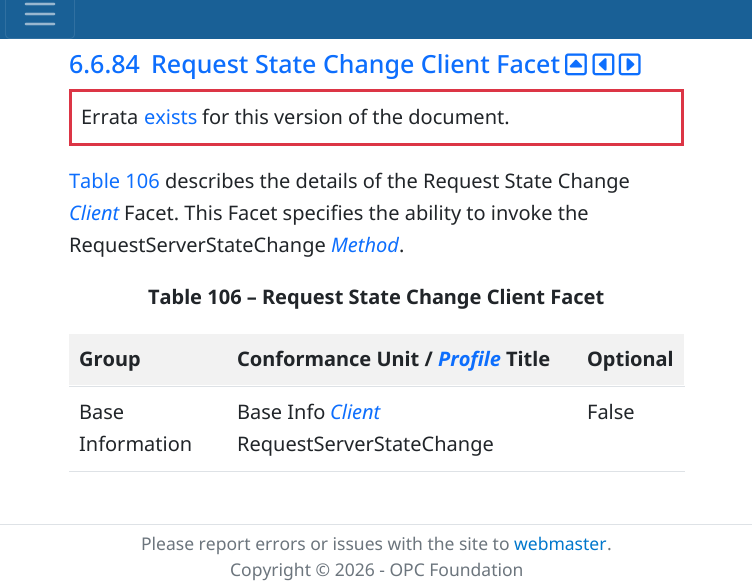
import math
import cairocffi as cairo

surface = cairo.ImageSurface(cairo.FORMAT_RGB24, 752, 581)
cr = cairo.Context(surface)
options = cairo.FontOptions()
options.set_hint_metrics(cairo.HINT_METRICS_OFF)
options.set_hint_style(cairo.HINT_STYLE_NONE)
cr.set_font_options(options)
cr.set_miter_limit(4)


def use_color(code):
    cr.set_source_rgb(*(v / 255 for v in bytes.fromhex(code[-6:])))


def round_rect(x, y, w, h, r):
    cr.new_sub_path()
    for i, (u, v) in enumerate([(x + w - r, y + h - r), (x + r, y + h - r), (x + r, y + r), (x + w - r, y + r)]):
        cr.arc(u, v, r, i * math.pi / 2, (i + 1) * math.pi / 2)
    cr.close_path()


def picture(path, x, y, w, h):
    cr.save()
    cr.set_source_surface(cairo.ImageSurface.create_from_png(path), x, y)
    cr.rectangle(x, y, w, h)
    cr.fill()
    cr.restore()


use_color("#ffffff")
cr.paint()
use_color("#196096")
cr.rectangle(0, 0, 752, 39)
cr.fill()
round_rect(5.5, -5.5, 69, 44, 4.5)
use_color("#3070a1")
cr.set_line_width(1)
cr.stroke()
cr.new_path()
cr.move_to(26, 4)
cr.line_to(54, 4)
cr.move_to(26, 14)
cr.line_to(54, 14)
cr.move_to(26, 24)
cr.line_to(54, 24)
use_color("#98b7d0")
cr.set_line_width(2.5)
cr.set_line_cap(cairo.LINE_CAP_ROUND)
cr.stroke()
cr.select_font_face("Noto Sans Medium")
cr.set_font_size(25)
use_color("#0d6efd")
cr.move_to(69, 73)
cr.show_text("6.6.84")
cr.move_to(151, 73)
cr.show_text("Request State Change Client Facet")
picture("img1.png", 565, 53, 22, 23)
picture("img2.png", 592, 53, 23, 23)
picture("img3.png", 618, 53, 23, 23)
cr.rectangle(70.5, 90.5, 612, 54)
use_color("#dc3545")
cr.set_line_width(3)
cr.set_line_cap(cairo.LINE_CAP_BUTT)
cr.stroke()
cr.select_font_face("Noto Sans")
cr.set_font_size(20)
use_color("#212529")
cr.move_to(81, 124)
cr.show_text("Errata")
use_color("#0d6efd")
cr.move_to(144, 124)
cr.show_text("exists")
use_color("#212529")
cr.move_to(202, 124)
cr.show_text("for this version of the document.")
use_color("#0d6efd")
cr.move_to(69, 188)
cr.show_text("Table 106")
use_color("#212529")
cr.move_to(165, 188)
cr.show_text("describes the details of the Request State Change")
cr.select_font_face("Noto Sans", cairo.FONT_SLANT_ITALIC)
use_color("#0d6efd")
cr.move_to(69, 220)
cr.show_text("Client")
cr.select_font_face("Noto Sans")
use_color("#212529")
cr.move_to(124, 220)
cr.show_text("Facet. This Facet specifies the ability to invoke the")
cr.move_to(69, 252)
cr.show_text("RequestServerStateChange")
cr.select_font_face("Noto Sans", cairo.FONT_SLANT_ITALIC)
use_color("#0d6efd")
cr.move_to(331, 252)
cr.show_text("Method")
cr.select_font_face("Noto Sans")
use_color("#212529")
cr.move_to(399, 252)
cr.show_text(".")
cr.select_font_face("Noto Sans", cairo.FONT_SLANT_NORMAL, cairo.FONT_WEIGHT_BOLD)
cr.move_to(148, 304)
cr.show_text("Table 106 – Request State Change Client Facet")
use_color("#f2f2f2")
cr.rectangle(69, 334, 615, 51)
cr.fill()
use_color("#212529")
cr.move_to(79, 366)
cr.show_text("Group")
cr.move_to(237, 366)
cr.show_text("Conformance Unit /")
cr.select_font_face("Noto Sans", cairo.FONT_SLANT_ITALIC, cairo.FONT_WEIGHT_BOLD)
use_color("#0d6efd")
cr.move_to(438, 366)
cr.show_text("Profile")
cr.select_font_face("Noto Sans", cairo.FONT_SLANT_NORMAL, cairo.FONT_WEIGHT_BOLD)
use_color("#212529")
cr.move_to(506, 366)
cr.show_text("Title")
use_color("#dee2e6")
cr.rectangle(69, 386, 616, 1)
cr.fill()
use_color("#212529")
cr.move_to(587, 366)
cr.show_text("Optional")
cr.select_font_face("Noto Sans")
cr.move_to(79, 419)
cr.show_text("Base")
cr.move_to(79, 451)
cr.show_text("Information")
cr.move_to(237, 419)
cr.show_text("Base Info")
cr.select_font_face("Noto Sans", cairo.FONT_SLANT_ITALIC)
use_color("#0d6efd")
cr.move_to(330, 419)
cr.show_text("Client")
cr.select_font_face("Noto Sans")
use_color("#212529")
cr.move_to(237, 451)
cr.show_text("RequestServerStateChange")
use_color("#dee2e6")
cr.rectangle(69, 471, 616, 1)
cr.fill()
use_color("#212529")
cr.move_to(587, 419)
cr.show_text("False")
use_color("#dee2e6")
cr.rectangle(0, 524, 752, 1)
cr.fill()
cr.set_font_size(17.5)
use_color("#6c757d")
cr.move_to(141, 550)
cr.show_text("Please report errors or issues with the site to")
use_color("#0077cc")
cr.move_to(514, 550)
cr.show_text("webmaster")
use_color("#6c757d")
cr.move_to(607, 550)
cr.show_text(".")
cr.move_to(230, 576)
cr.show_text("Copyright © 2026 - OPC Foundation")
surface.write_to_png("result.png")
